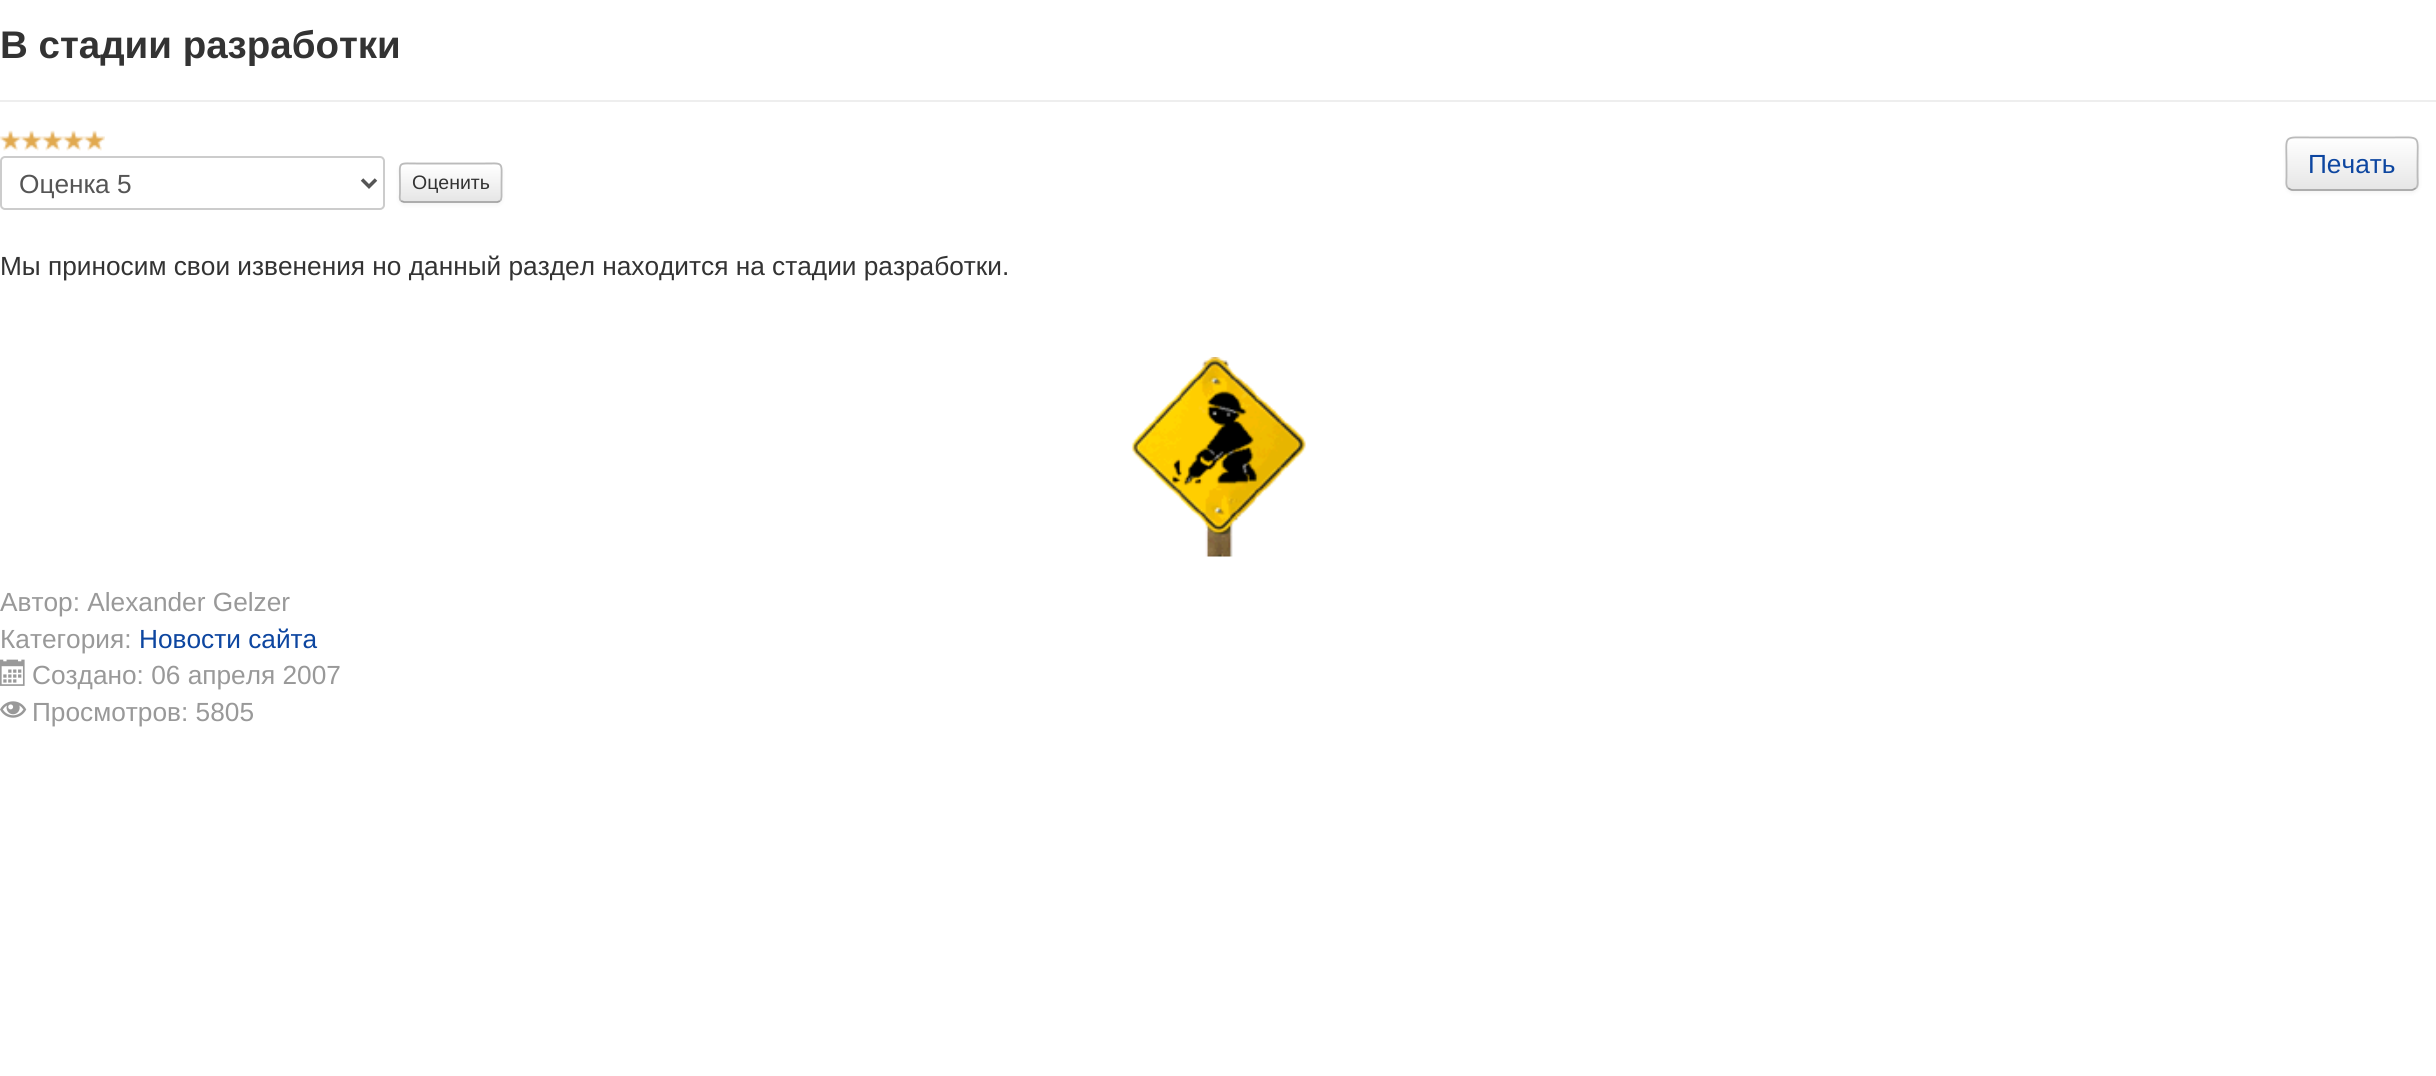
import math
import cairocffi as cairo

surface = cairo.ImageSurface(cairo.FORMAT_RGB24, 2436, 1076)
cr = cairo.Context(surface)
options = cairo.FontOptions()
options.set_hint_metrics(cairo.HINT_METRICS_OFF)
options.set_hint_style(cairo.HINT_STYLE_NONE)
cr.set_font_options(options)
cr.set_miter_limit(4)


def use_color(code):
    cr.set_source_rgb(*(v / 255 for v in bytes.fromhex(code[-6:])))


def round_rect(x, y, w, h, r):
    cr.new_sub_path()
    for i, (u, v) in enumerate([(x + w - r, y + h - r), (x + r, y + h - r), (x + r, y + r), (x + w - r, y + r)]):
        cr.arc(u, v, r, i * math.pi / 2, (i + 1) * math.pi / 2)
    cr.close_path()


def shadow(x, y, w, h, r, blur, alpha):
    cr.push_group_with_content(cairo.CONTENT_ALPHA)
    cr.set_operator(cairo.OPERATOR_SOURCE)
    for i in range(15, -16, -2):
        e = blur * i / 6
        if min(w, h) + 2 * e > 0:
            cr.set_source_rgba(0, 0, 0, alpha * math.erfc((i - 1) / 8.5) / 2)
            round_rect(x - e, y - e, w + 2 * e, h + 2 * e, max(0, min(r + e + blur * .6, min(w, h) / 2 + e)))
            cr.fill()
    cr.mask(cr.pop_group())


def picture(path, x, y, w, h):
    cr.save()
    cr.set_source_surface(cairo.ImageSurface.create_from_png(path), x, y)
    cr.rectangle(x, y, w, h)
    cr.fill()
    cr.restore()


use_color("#ffffff")
cr.paint()
use_color("#eeeeee")
cr.rectangle(0, 100, 2436, 2)
cr.fill()
cr.select_font_face("Liberation Sans", cairo.FONT_SLANT_NORMAL, cairo.FONT_WEIGHT_BOLD)
cr.set_font_size(38.5)
use_color("#333333")
cr.move_to(0, 58)
cr.show_text("В стадии разработки")
picture("img1.png", 0, 130, 21, 21)
picture("img2.png", 21, 130, 21, 21)
picture("img3.png", 42, 130, 21, 21)
picture("img1.png", 63, 130, 21, 21)
picture("img3.png", 84, 130, 21, 21)
use_color("#000000")
shadow(2286, 138, 133, 55, 7, 2, 0.05)
use_color("#f5f5f5")
round_rect(2286, 137, 133, 54, 7)
cr.fill()
cr.save()
round_rect(2286, 137, 133, 54, 7)
cr.clip()
gradient = cairo.LinearGradient(2352, 138, 2352, 189)
gradient.add_color_stop_rgba(0, 1, 1, 1, 1)
gradient.add_color_stop_rgba(1, 0.902, 0.902, 0.902, 1)
cr.set_source(gradient)
cr.rectangle(2286, 138, 133, 51)
cr.fill()
cr.restore()
cr.new_path()
cr.move_to(2416, 188)
cr.curve_to(2414.5, 189, 2413, 190, 2411.5, 190)
cr.line_to(2292.5, 190)
cr.curve_to(2291, 190, 2289.5, 189, 2288, 188)
use_color("#a2a2a2")
cr.set_line_width(1.8)
cr.stroke()
cr.new_path()
cr.move_to(2288, 188)
cr.curve_to(2285.5, 185.5, 2286.5, 180.5, 2286.5, 177)
cr.line_to(2286.5, 163.5)
cr.curve_to(2286.5, 134, 2282, 137.5, 2312.5, 137.5)
cr.line_to(2391.5, 137.5)
cr.curve_to(2422, 137.5, 2417.5, 134, 2417.5, 163.5)
cr.line_to(2417.5, 177)
cr.curve_to(2417.5, 180.5, 2418.5, 185.5, 2416, 188)
use_color("#bbbbbb")
cr.stroke()
cr.select_font_face("Liberation Sans")
cr.set_font_size(26.25)
use_color("#0d46a0")
cr.move_to(2308, 173)
cr.show_text("Печать")
round_rect(1, 157, 383, 52, 4)
use_color("#cccccc")
cr.set_line_width(2)
cr.stroke()
cr.new_path()
cr.move_to(362, 179.5)
cr.line_to(369, 186.5)
cr.line_to(376, 179.5)
use_color("#555555")
cr.set_line_width(3.5)
cr.stroke()
cr.move_to(19, 193)
cr.show_text("Оценка 5")
use_color("#000000")
shadow(399, 165, 103, 40, 5, 2, 0.05)
use_color("#f5f5f5")
round_rect(399, 163, 103, 40, 5)
cr.fill()
cr.save()
round_rect(399, 163, 103, 40, 5)
cr.clip()
gradient = cairo.LinearGradient(451, 165, 451, 201)
gradient.add_color_stop_rgba(0, 1, 1, 1, 1)
gradient.add_color_stop_rgba(1, 0.902, 0.902, 0.902, 1)
cr.set_source(gradient)
cr.rectangle(399, 165, 103, 36)
cr.fill()
cr.restore()
cr.set_source_rgba(1, 1, 1, 0.2)
cr.new_path()
cr.move_to(404, 166)
cr.line_to(497, 166)
cr.curve_to(499, 166, 500, 168, 500, 170)
cr.line_to(500, 200)
cr.curve_to(502, 197, 501, 186, 501, 183)
cr.curve_to(501, 162, 504, 165, 482, 165)
cr.line_to(420, 165)
cr.curve_to(416, 165, 401, 161, 401, 170)
cr.curve_to(401, 168, 402, 166, 404, 166)
cr.close_path()
cr.fill()
cr.new_path()
cr.move_to(500, 201)
cr.line_to(497.5, 202)
cr.line_to(404, 202)
cr.line_to(401, 201)
use_color("#a2a2a2")
cr.set_line_width(1.8)
cr.stroke()
cr.new_path()
cr.move_to(401, 201)
cr.curve_to(399, 199, 400, 195, 400, 193)
cr.line_to(400, 183)
cr.curve_to(400, 160.5, 396.5, 163.5, 419.5, 163.5)
cr.line_to(481.5, 163.5)
cr.curve_to(504.5, 163.5, 501.5, 160.5, 501.5, 183)
cr.line_to(501.5, 193)
cr.curve_to(501.5, 195, 502, 199, 500, 201)
use_color("#bbbbbb")
cr.stroke()
cr.set_font_size(19.5)
use_color("#333333")
cr.move_to(412, 189)
cr.show_text("Оценить")
cr.set_font_size(26.25)
cr.move_to(0, 275)
cr.show_text("Мы приносим свои извенения но данный раздел находится на стадии разработки.")
picture("img4.png", 1131, 357, 175, 200)
use_color("#999999")
cr.move_to(0, 611)
cr.show_text("Автор: Alexander Gelzer")
cr.move_to(0, 648)
cr.show_text("Категория:")
use_color("#0d46a0")
cr.move_to(139, 648)
cr.show_text("Новости сайта")
picture("img5.png", 0, 659, 25, 27)
use_color("#999999")
cr.move_to(32, 684)
cr.show_text("Создано: 06 апреля 2007")
picture("img6.png", 0, 701, 27, 17)
cr.move_to(32, 721)
cr.show_text("Просмотров: 5805")
surface.write_to_png("result.png")
